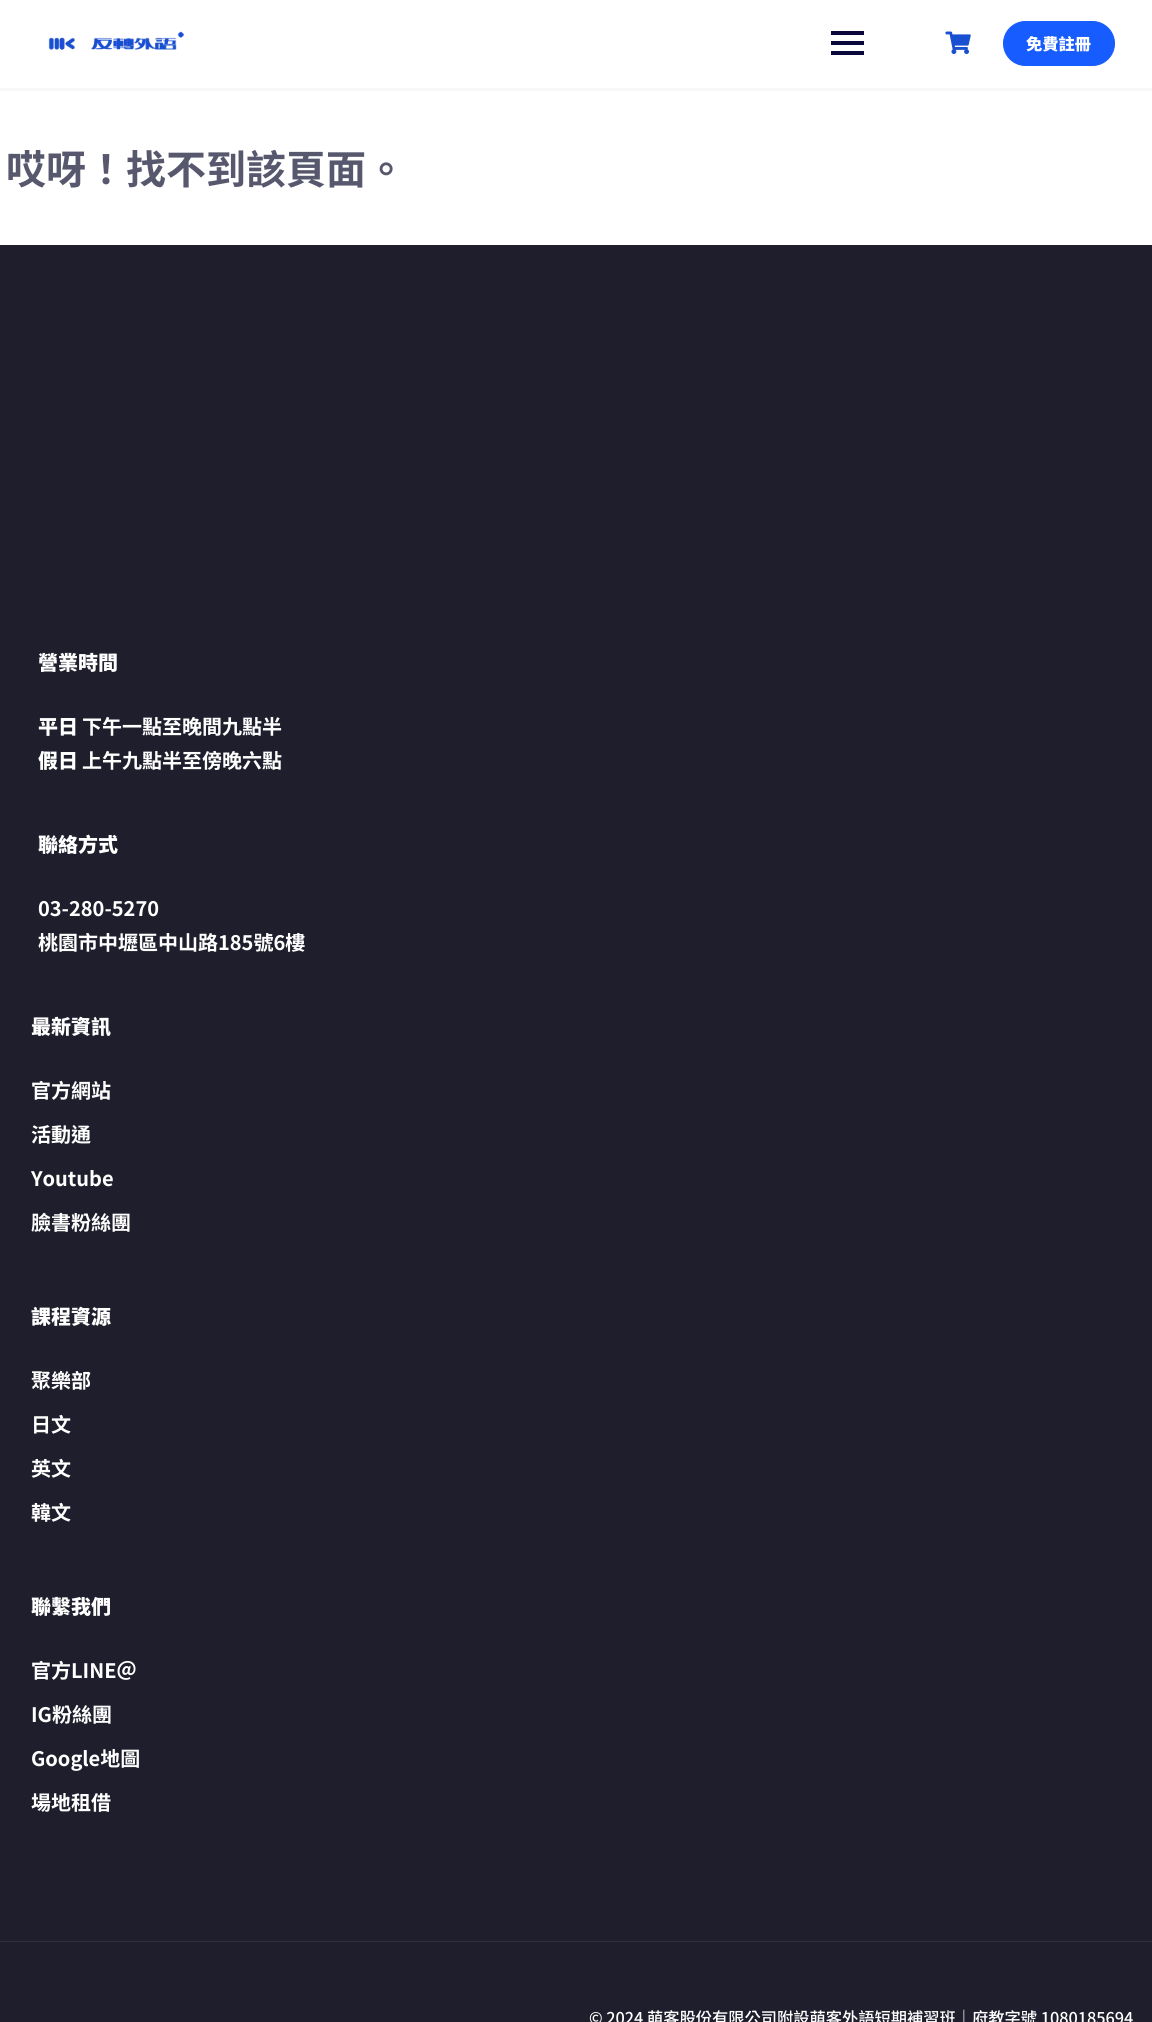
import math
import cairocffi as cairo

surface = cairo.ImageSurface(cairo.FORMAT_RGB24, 1152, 2022)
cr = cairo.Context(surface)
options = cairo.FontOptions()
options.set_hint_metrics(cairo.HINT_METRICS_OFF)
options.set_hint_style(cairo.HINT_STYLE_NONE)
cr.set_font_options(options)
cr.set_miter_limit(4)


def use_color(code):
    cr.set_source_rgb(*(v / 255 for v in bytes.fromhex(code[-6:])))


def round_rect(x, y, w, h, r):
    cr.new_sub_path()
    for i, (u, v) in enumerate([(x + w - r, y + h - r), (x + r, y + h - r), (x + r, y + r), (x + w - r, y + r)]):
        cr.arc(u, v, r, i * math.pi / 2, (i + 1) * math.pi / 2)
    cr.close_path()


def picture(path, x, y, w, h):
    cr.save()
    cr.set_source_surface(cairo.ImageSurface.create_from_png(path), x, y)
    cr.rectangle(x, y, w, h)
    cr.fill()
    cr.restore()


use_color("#ffffff")
cr.paint()
use_color("#f8f8f8")
cr.rectangle(0, 88, 1152, 3)
cr.fill()
picture("img1.png", 48, 31, 136, 19)
use_color("#0a083b")
cr.rectangle(831, 41, 33, 4)
cr.fill()
cr.rectangle(831, 31, 33, 4)
cr.fill()
cr.rectangle(831, 51, 33, 4)
cr.fill()
picture("img2.png", 945, 31, 26, 23)
use_color("#175cff")
round_rect(1003.5, 21.5, 111, 44, 22)
cr.fill_preserve()
cr.set_line_width(1)
cr.stroke()
cr.select_font_face("Noto Sans TC Black")
cr.set_font_size(16.25)
use_color("#ffffff")
cr.move_to(1026, 50)
cr.show_text("免費註冊")
cr.select_font_face("Noto Sans TC", cairo.FONT_SLANT_NORMAL, cairo.FONT_WEIGHT_BOLD)
cr.set_font_size(40)
use_color("#57586e")
cr.move_to(6, 184)
cr.show_text("哎呀！找不到該頁面。")
use_color("#1e1e2c")
cr.rectangle(0, 245, 1152, 1777)
cr.fill()
use_color("#30303d")
cr.rectangle(0, 1941, 1152, 1)
cr.fill()
cr.select_font_face("Noto Sans TC Black")
cr.set_font_size(20)
use_color("#ffffff")
cr.move_to(38, 670)
cr.show_text("營業時間")
cr.move_to(38, 734)
cr.show_text("平日")
cr.select_font_face("Noto Sans TC", cairo.FONT_SLANT_NORMAL, cairo.FONT_WEIGHT_BOLD)
cr.move_to(82, 734)
cr.show_text("下午一點至晚間九點半")
cr.select_font_face("Noto Sans TC Black")
cr.move_to(38, 768)
cr.show_text("假日")
cr.select_font_face("Noto Sans TC", cairo.FONT_SLANT_NORMAL, cairo.FONT_WEIGHT_BOLD)
cr.move_to(82, 768)
cr.show_text("上午九點半至傍晚六點")
cr.select_font_face("Noto Sans TC Black")
cr.move_to(38, 852)
cr.show_text("聯絡方式")
cr.select_font_face("Noto Sans TC", cairo.FONT_SLANT_NORMAL, cairo.FONT_WEIGHT_BOLD)
cr.move_to(38, 916)
cr.show_text("03-280-5270")
cr.move_to(38, 950)
cr.show_text("桃園市中壢區中山路185號6樓")
cr.select_font_face("Noto Sans TC Black")
cr.move_to(31, 1034)
cr.show_text("最新資訊")
cr.select_font_face("Noto Sans TC", cairo.FONT_SLANT_NORMAL, cairo.FONT_WEIGHT_BOLD)
cr.move_to(31, 1098)
cr.show_text("官方網站")
cr.move_to(31, 1142)
cr.show_text("活動通")
cr.move_to(31, 1186)
cr.show_text("Youtube")
cr.move_to(31, 1230)
cr.show_text("臉書粉絲團")
cr.select_font_face("Noto Sans TC Black")
cr.move_to(31, 1324)
cr.show_text("課程資源")
cr.select_font_face("Noto Sans TC", cairo.FONT_SLANT_NORMAL, cairo.FONT_WEIGHT_BOLD)
cr.move_to(31, 1388)
cr.show_text("聚樂部")
cr.move_to(31, 1432)
cr.show_text("日文")
cr.move_to(31, 1476)
cr.show_text("英文")
cr.move_to(31, 1520)
cr.show_text("韓文")
cr.select_font_face("Noto Sans TC Black")
cr.move_to(31, 1614)
cr.show_text("聯繫我們")
cr.select_font_face("Noto Sans TC", cairo.FONT_SLANT_NORMAL, cairo.FONT_WEIGHT_BOLD)
cr.move_to(31, 1678)
cr.show_text("官方LINE＠")
cr.move_to(31, 1722)
cr.show_text("IG粉絲團")
cr.move_to(31, 1766)
cr.show_text("Google地圖")
cr.move_to(31, 1810)
cr.show_text("場地租借")
cr.select_font_face("Noto Sans TC Medium")
cr.set_font_size(16.25)
cr.move_to(589, 2024)
cr.show_text("© 2024 萌客股份有限公司附設萌客外語短期補習班｜府教字號 1080185694")
surface.write_to_png("result.png")
